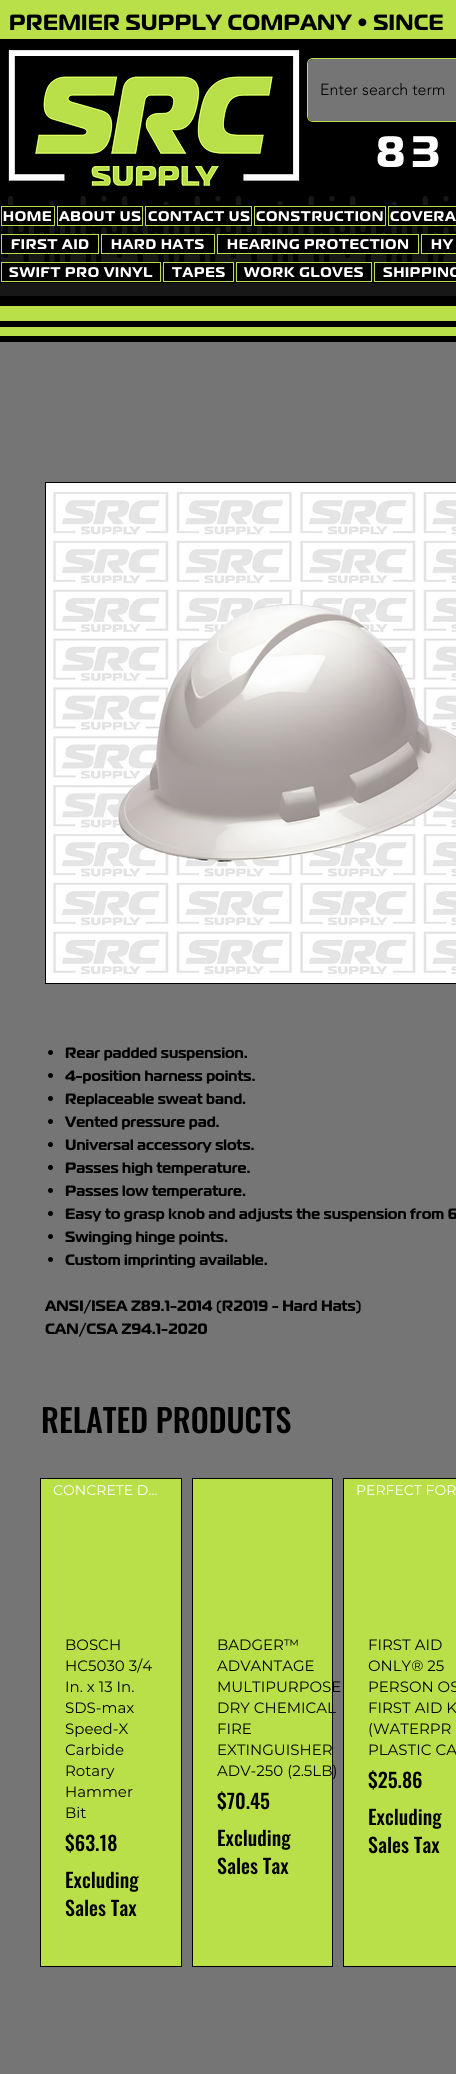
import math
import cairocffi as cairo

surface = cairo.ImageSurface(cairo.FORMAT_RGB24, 456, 2074)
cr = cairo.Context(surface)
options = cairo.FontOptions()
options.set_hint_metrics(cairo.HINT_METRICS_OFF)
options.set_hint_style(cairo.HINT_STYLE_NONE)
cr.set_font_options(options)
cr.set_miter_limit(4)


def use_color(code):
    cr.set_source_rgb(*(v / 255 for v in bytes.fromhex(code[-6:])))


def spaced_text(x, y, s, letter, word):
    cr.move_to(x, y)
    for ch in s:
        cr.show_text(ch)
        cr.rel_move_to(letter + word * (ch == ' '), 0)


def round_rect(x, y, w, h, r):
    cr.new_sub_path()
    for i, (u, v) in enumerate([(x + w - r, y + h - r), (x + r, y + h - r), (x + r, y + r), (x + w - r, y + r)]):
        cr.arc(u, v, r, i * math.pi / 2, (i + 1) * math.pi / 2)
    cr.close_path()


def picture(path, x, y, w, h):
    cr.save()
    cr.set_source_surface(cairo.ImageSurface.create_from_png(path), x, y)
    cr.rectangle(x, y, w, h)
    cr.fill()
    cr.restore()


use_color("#000000")
cr.paint()
use_color("#bae049")
cr.rectangle(0, 0, 456, 39)
cr.fill()
cr.select_font_face("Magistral", cairo.FONT_SLANT_NORMAL, cairo.FONT_WEIGHT_BOLD)
cr.set_font_size(22)
use_color("#000000")
spaced_text(9, 30, "PREMIER SUPPLY COMPANY • SINCE", 0.25, 0)
picture("img1.png", 8, 50, 292, 136)
round_rect(307.5, 58.5, 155, 63, 5.5)
use_color("#bae049")
cr.set_line_width(1)
cr.stroke()
use_color("#757575")
round_rect(308, 59, 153, 62, 5)
cr.fill()
cr.select_font_face("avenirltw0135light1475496 Light")
cr.set_font_size(16)
use_color("#000000")
cr.move_to(320, 95)
cr.show_text("Enter search term")
cr.select_font_face("Magistral", cairo.FONT_SLANT_NORMAL, cairo.FONT_WEIGHT_BOLD)
cr.set_font_size(44)
use_color("#ffffff")
spaced_text(376, 167, "83", 6, 0)
picture("img2.png", 0, 196, 456, 100)
cr.rectangle(0.5, 205.5, 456, 77)
use_color("#000000")
cr.stroke()
cr.rectangle(1.5, 206.5, 53, 19)
cr.fill_preserve()
use_color("#bae049")
cr.stroke()
cr.set_font_size(14)
use_color("#ffffff")
spaced_text(3, 221, "HOME", 0.75, 0)
use_color("#000000")
cr.rectangle(59, 207, 79, 18)
cr.fill()
cr.rectangle(57.5, 206.5, 85, 19)
use_color("#bae049")
cr.stroke()
use_color("#ffffff")
spaced_text(59, 221, "ABOUT US", 0.75, 0)
use_color("#000000")
cr.rectangle(145.5, 206.5, 106, 19)
cr.fill_preserve()
use_color("#bae049")
cr.stroke()
use_color("#ffffff")
spaced_text(148, 221, "CONTACT US", 0.75, 0)
use_color("#000000")
cr.rectangle(256, 207, 129, 18)
cr.fill()
cr.rectangle(254.5, 206.5, 131, 19)
use_color("#bae049")
cr.stroke()
use_color("#ffffff")
spaced_text(256, 221, "CONSTRUCTION", 0.75, 0)
use_color("#000000")
cr.rectangle(391, 207, 65, 18)
cr.fill()
cr.rectangle(388.5, 206.5, 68, 19)
use_color("#bae049")
cr.stroke()
use_color("#ffffff")
spaced_text(390, 221, "COVERA", 0.75, 0)
use_color("#000000")
cr.rectangle(2, 235, 95, 18)
cr.fill()
cr.rectangle(1.5, 234.5, 97, 19)
use_color("#bae049")
cr.stroke()
use_color("#ffffff")
spaced_text(11, 249, "FIRST AID", 0.75, 0)
use_color("#000000")
cr.rectangle(102, 235, 109, 18)
cr.fill()
cr.rectangle(101.5, 234.5, 113, 19)
use_color("#bae049")
cr.stroke()
use_color("#ffffff")
spaced_text(111, 249, "HARD HATS", 0.75, 0)
use_color("#000000")
cr.rectangle(217.5, 234.5, 201, 19)
cr.fill_preserve()
use_color("#bae049")
cr.stroke()
use_color("#ffffff")
spaced_text(227, 249, "HEARING PROTECTION", 0.75, 0)
use_color("#000000")
cr.rectangle(421.5, 234.5, 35, 19)
cr.fill_preserve()
use_color("#bae049")
cr.stroke()
use_color("#ffffff")
spaced_text(431, 249, "HY", 0.75, 0)
use_color("#000000")
cr.rectangle(1.5, 262.5, 159, 19)
cr.fill_preserve()
use_color("#bae049")
cr.stroke()
use_color("#ffffff")
spaced_text(9, 277, "SWIFT PRO VINYL", 0.75, 0)
use_color("#000000")
cr.rectangle(163.5, 262.5, 70, 19)
cr.fill_preserve()
use_color("#bae049")
cr.stroke()
use_color("#ffffff")
spaced_text(172, 277, "TAPES", 0.75, 0)
use_color("#000000")
cr.rectangle(236.5, 262.5, 135, 19)
cr.fill_preserve()
use_color("#bae049")
cr.stroke()
use_color("#ffffff")
spaced_text(244, 277, "WORK GLOVES", 0.75, 0)
use_color("#000000")
cr.rectangle(374.5, 262.5, 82, 19)
cr.fill_preserve()
use_color("#bae049")
cr.stroke()
use_color("#ffffff")
spaced_text(383, 277, "SHIPPING", 0.75, 0)
use_color("#bae049")
cr.rectangle(0, 306, 456, 15)
cr.fill()
cr.rectangle(0, 327, 456, 9)
cr.fill()
use_color("#757575")
cr.rectangle(0, 342, 456, 1732)
cr.fill()
cr.rectangle(45.5, 482.5, 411, 501)
use_color("#000000")
cr.stroke()
picture("img3.png", 46, 483, 410, 500)
cr.arc(50.5, 1052.5, 2.5, 0, 2 * math.pi)
cr.fill()
cr.set_font_size(15)
cr.move_to(65, 1058)
cr.show_text("Rear padded suspension.")
cr.new_path()
cr.arc(50.5, 1075.5, 2.5, 0, 2 * math.pi)
cr.fill()
cr.move_to(65, 1081)
cr.show_text("4-position harness points.")
cr.new_path()
cr.arc(50.5, 1098.5, 2.5, 0, 2 * math.pi)
cr.fill()
cr.move_to(65, 1104)
cr.show_text("Replaceable sweat band.")
cr.new_path()
cr.arc(50.5, 1121.5, 2.5, 0, 2 * math.pi)
cr.fill()
cr.move_to(65, 1127)
cr.show_text("Vented pressure pad.")
cr.new_path()
cr.arc(50.5, 1144.5, 2.5, 0, 2 * math.pi)
cr.fill()
cr.move_to(65, 1150)
cr.show_text("Universal accessory slots.")
cr.new_path()
cr.arc(50.5, 1167.5, 2.5, 0, 2 * math.pi)
cr.fill()
cr.move_to(65, 1173)
cr.show_text("Passes high temperature.")
cr.new_path()
cr.arc(50.5, 1190.5, 2.5, 0, 2 * math.pi)
cr.fill()
cr.move_to(65, 1196)
cr.show_text("Passes low temperature.")
cr.new_path()
cr.arc(50.5, 1213.5, 2.5, 0, 2 * math.pi)
cr.fill()
cr.move_to(65, 1219)
cr.show_text("Easy to grasp knob and adjusts the suspension from 6")
cr.new_path()
cr.arc(50.5, 1236.5, 2.5, 0, 2 * math.pi)
cr.fill()
cr.move_to(65, 1242)
cr.show_text("Swinging hinge points.")
cr.new_path()
cr.arc(50.5, 1259.5, 2.5, 0, 2 * math.pi)
cr.fill()
cr.move_to(65, 1265)
cr.show_text("Custom imprinting available.")
cr.move_to(45, 1311)
cr.show_text("ANSI/ISEA Z89.1-2014 (R2019 - Hard Hats)")
cr.move_to(45, 1334)
cr.show_text("CAN/CSA Z94.1-2020")
cr.select_font_face("Oswald Medium")
cr.set_font_size(32)
cr.move_to(41, 1433)
cr.show_text("RELATED PRODUCTS")
use_color("#bae049")
cr.rectangle(40.5, 1478.5, 141, 488)
cr.fill_preserve()
use_color("#000000")
cr.stroke()
cr.select_font_face("Montserrat")
cr.set_font_size(14)
use_color("#ffffff")
cr.move_to(53, 1495)
cr.show_text("CONCRETE D…")
cr.set_font_size(15)
use_color("#000000")
cr.move_to(65, 1650)
cr.show_text("BOSCH")
cr.move_to(65, 1671)
cr.show_text("HC5030 3/4")
cr.move_to(65, 1692)
cr.show_text("In. x 13 In.")
cr.move_to(65, 1713)
cr.show_text("SDS-max")
cr.move_to(65, 1734)
cr.show_text("Speed-X")
cr.move_to(65, 1755)
cr.show_text("Carbide")
cr.move_to(65, 1776)
cr.show_text("Rotary")
cr.move_to(65, 1797)
cr.show_text("Hammer")
cr.move_to(65, 1818)
cr.show_text("Bit")
cr.select_font_face("Oswald Medium")
cr.set_font_size(20)
cr.move_to(65, 1851)
cr.show_text("$63.18")
cr.move_to(65, 1888)
cr.show_text("Excluding")
cr.move_to(65, 1916)
cr.show_text("Sales Tax")
use_color("#bae049")
cr.rectangle(192.5, 1478.5, 140, 488)
cr.fill_preserve()
use_color("#000000")
cr.stroke()
cr.select_font_face("Montserrat")
cr.set_font_size(15)
cr.move_to(217, 1650)
cr.show_text("BADGER™")
cr.move_to(217, 1671)
cr.show_text("ADVANTAGE")
cr.move_to(217, 1692)
cr.show_text("MULTIPURPOSE")
cr.move_to(217, 1713)
cr.show_text("DRY CHEMICAL")
cr.move_to(217, 1734)
cr.show_text("FIRE")
cr.move_to(217, 1755)
cr.show_text("EXTINGUISHER")
cr.move_to(217, 1776)
cr.show_text("ADV-250 (2.5LB)")
cr.select_font_face("Oswald Medium")
cr.set_font_size(20)
cr.move_to(217, 1809)
cr.show_text("$70.45")
cr.move_to(217, 1846)
cr.show_text("Excluding")
cr.move_to(217, 1874)
cr.show_text("Sales Tax")
use_color("#bae049")
cr.rectangle(343.5, 1478.5, 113, 488)
cr.fill_preserve()
use_color("#000000")
cr.stroke()
cr.select_font_face("Montserrat")
cr.set_font_size(14)
use_color("#ffffff")
cr.move_to(356, 1495)
cr.show_text("PERFECT FOR")
cr.set_font_size(15)
use_color("#000000")
cr.move_to(368, 1650)
cr.show_text("FIRST AID")
cr.move_to(368, 1671)
cr.show_text("ONLY® 25")
cr.move_to(368, 1692)
cr.show_text("PERSON OS")
cr.move_to(368, 1713)
cr.show_text("FIRST AID K")
cr.move_to(368, 1734)
cr.show_text("(WATERPR")
cr.move_to(368, 1755)
cr.show_text("PLASTIC CA")
cr.select_font_face("Oswald Medium")
cr.set_font_size(20)
cr.move_to(368, 1788)
cr.show_text("$25.86")
cr.move_to(368, 1825)
cr.show_text("Excluding")
cr.move_to(368, 1853)
cr.show_text("Sales Tax")
surface.write_to_png("result.png")
